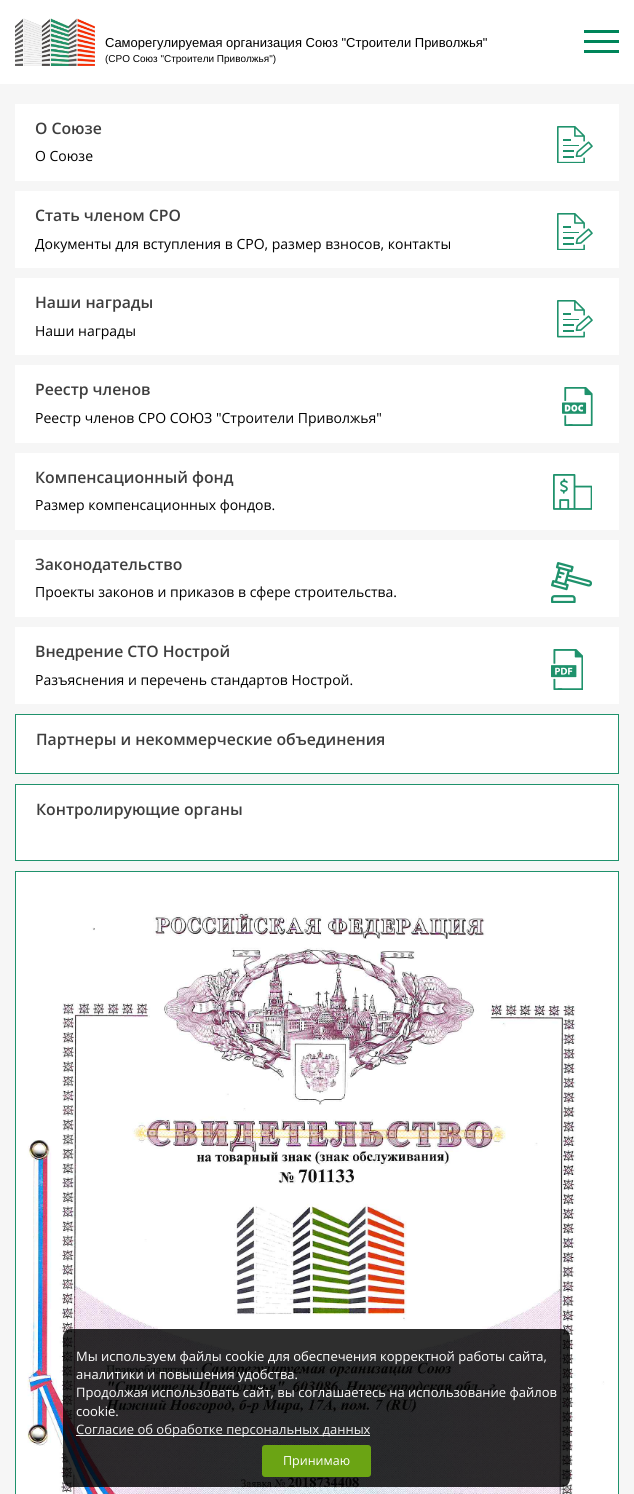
import math
import cairocffi as cairo

surface = cairo.ImageSurface(cairo.FORMAT_RGB24, 634, 1494)
cr = cairo.Context(surface)
options = cairo.FontOptions()
options.set_hint_metrics(cairo.HINT_METRICS_OFF)
options.set_hint_style(cairo.HINT_STYLE_NONE)
cr.set_font_options(options)
cr.set_miter_limit(4)


def use_color(code):
    cr.set_source_rgb(*(v / 255 for v in bytes.fromhex(code[-6:])))


def round_rect(x, y, w, h, r):
    cr.new_sub_path()
    for i, (u, v) in enumerate([(x + w - r, y + h - r), (x + r, y + h - r), (x + r, y + r), (x + w - r, y + r)]):
        cr.arc(u, v, r, i * math.pi / 2, (i + 1) * math.pi / 2)
    cr.close_path()


def picture(path, x, y, w, h):
    cr.save()
    cr.set_source_surface(cairo.ImageSurface.create_from_png(path), x, y)
    cr.rectangle(x, y, w, h)
    cr.fill()
    cr.restore()


use_color("#f6f6f6")
cr.paint()
use_color("#ffffff")
cr.rectangle(0, 0, 634, 84)
cr.fill()
picture("img1.png", 15, 18, 80, 48)
cr.select_font_face("Liberation Sans")
cr.set_font_size(13)
use_color("#000000")
cr.move_to(105, 47)
cr.show_text("Саморегулируемая организация Союз \"Строители Приволжья\"")
cr.set_font_size(10)
cr.move_to(105, 62)
cr.show_text("(СРО Союз \"Строители Приволжья\")")
use_color("#00855a")
cr.rectangle(584, 30, 35, 3)
cr.fill()
cr.rectangle(584, 40, 35, 3)
cr.fill()
cr.rectangle(584, 50, 35, 3)
cr.fill()
use_color("#ffffff")
cr.rectangle(15, 104, 604, 77)
cr.fill()
cr.select_font_face("Open Sans SemiBold")
cr.set_font_size(15.75)
use_color("#3e3e3e")
cr.move_to(35, 134)
cr.show_text("О Союзе")
cr.select_font_face("Open Sans")
cr.set_font_size(14)
use_color("#000000")
cr.move_to(35, 161)
cr.show_text("О Союзе")
picture("img2.png", 557, 126, 36, 37)
use_color("#ffffff")
cr.rectangle(15, 191, 604, 77)
cr.fill()
cr.select_font_face("Open Sans SemiBold")
cr.set_font_size(15.75)
use_color("#3e3e3e")
cr.move_to(35, 221)
cr.show_text("Стать членом СРО")
cr.select_font_face("Open Sans")
cr.set_font_size(14)
use_color("#000000")
cr.move_to(35, 249)
cr.show_text("Документы для вступления в СРО, размер взносов, контакты")
picture("img2.png", 557, 213, 36, 37)
use_color("#ffffff")
cr.rectangle(15, 278, 604, 77)
cr.fill()
cr.select_font_face("Open Sans SemiBold")
cr.set_font_size(15.75)
use_color("#3e3e3e")
cr.move_to(35, 308)
cr.show_text("Наши награды")
cr.select_font_face("Open Sans")
cr.set_font_size(14)
use_color("#000000")
cr.move_to(35, 336)
cr.show_text("Наши награды")
picture("img3.png", 557, 300, 36, 38)
use_color("#ffffff")
cr.rectangle(15, 365, 604, 78)
cr.fill()
cr.select_font_face("Open Sans SemiBold")
cr.set_font_size(15.75)
use_color("#3e3e3e")
cr.move_to(35, 395)
cr.show_text("Реестр членов")
cr.select_font_face("Open Sans")
cr.set_font_size(14)
use_color("#000000")
cr.move_to(35, 423)
cr.show_text("Реестр членов СРО СОЮЗ \"Строители Приволжья\"")
picture("img4.png", 562, 387, 31, 39)
use_color("#ffffff")
cr.rectangle(15, 453, 604, 77)
cr.fill()
cr.select_font_face("Open Sans SemiBold")
cr.set_font_size(15.75)
use_color("#3e3e3e")
cr.move_to(35, 483)
cr.show_text("Компенсационный фонд")
cr.select_font_face("Open Sans")
cr.set_font_size(14)
use_color("#000000")
cr.move_to(35, 510)
cr.show_text("Размер компенсационных фондов.")
picture("img5.png", 553, 474, 39, 36)
use_color("#ffffff")
cr.rectangle(15, 540, 604, 77)
cr.fill()
cr.select_font_face("Open Sans SemiBold")
cr.set_font_size(15.75)
use_color("#3e3e3e")
cr.move_to(35, 570)
cr.show_text("Законодательство")
cr.select_font_face("Open Sans")
cr.set_font_size(14)
use_color("#000000")
cr.move_to(35, 597)
cr.show_text("Проекты законов и приказов в сфере строительства.")
picture("img6.png", 551, 562, 41, 41)
use_color("#ffffff")
cr.rectangle(15, 627, 604, 77)
cr.fill()
cr.select_font_face("Open Sans SemiBold")
cr.set_font_size(15.75)
use_color("#3e3e3e")
cr.move_to(35, 657)
cr.show_text("Внедрение СТО Нострой")
cr.select_font_face("Open Sans")
cr.set_font_size(14)
use_color("#000000")
cr.move_to(35, 685)
cr.show_text("Разъяснения и перечень стандартов Нострой.")
picture("img7.png", 551, 649, 32, 41)
use_color("#ffffff")
cr.rectangle(15.5, 714.5, 603, 59)
cr.fill_preserve()
use_color("#1f926c")
cr.set_line_width(1)
cr.stroke()
cr.select_font_face("Open Sans SemiBold")
cr.set_font_size(15.75)
use_color("#3e3e3e")
cr.move_to(36, 745)
cr.show_text("Партнеры и некоммерческие объединения")
use_color("#ffffff")
cr.rectangle(15.5, 784.5, 603, 76)
cr.fill_preserve()
use_color("#1f926c")
cr.stroke()
use_color("#3e3e3e")
cr.move_to(36, 815)
cr.show_text("Контролирующие органы")
cr.rectangle(15.5, 871.5, 603, 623)
use_color("#1f926c")
cr.stroke()
picture("img8.png", 16, 872, 602, 622)
cr.set_source_rgba(0, 0, 0, 0.82)
round_rect(63, 1329, 507, 158, 8)
cr.fill()
cr.select_font_face("Open Sans")
cr.set_font_size(13)
use_color("#ffffff")
cr.move_to(76, 1361)
cr.show_text("Мы используем файлы cookie для обеспечения корректной работы сайта,")
cr.move_to(76, 1379)
cr.show_text("аналитики и повышения удобства.")
cr.move_to(76, 1397)
cr.show_text("Продолжая использовать сайт, вы соглашаетесь на использование файлов")
cr.move_to(76, 1416)
cr.show_text("cookie.")
use_color("#f1f1f1")
cr.rectangle(76, 1435, 294, 1)
cr.fill()
cr.move_to(76, 1434)
cr.show_text("Согласие об обработке персональных данных")
use_color("#6ba414")
round_rect(262, 1445, 109, 32, 3)
cr.fill()
cr.set_font_size(12.5)
use_color("#ffffff")
cr.move_to(283, 1465)
cr.show_text("Принимаю")
surface.write_to_png("result.png")
